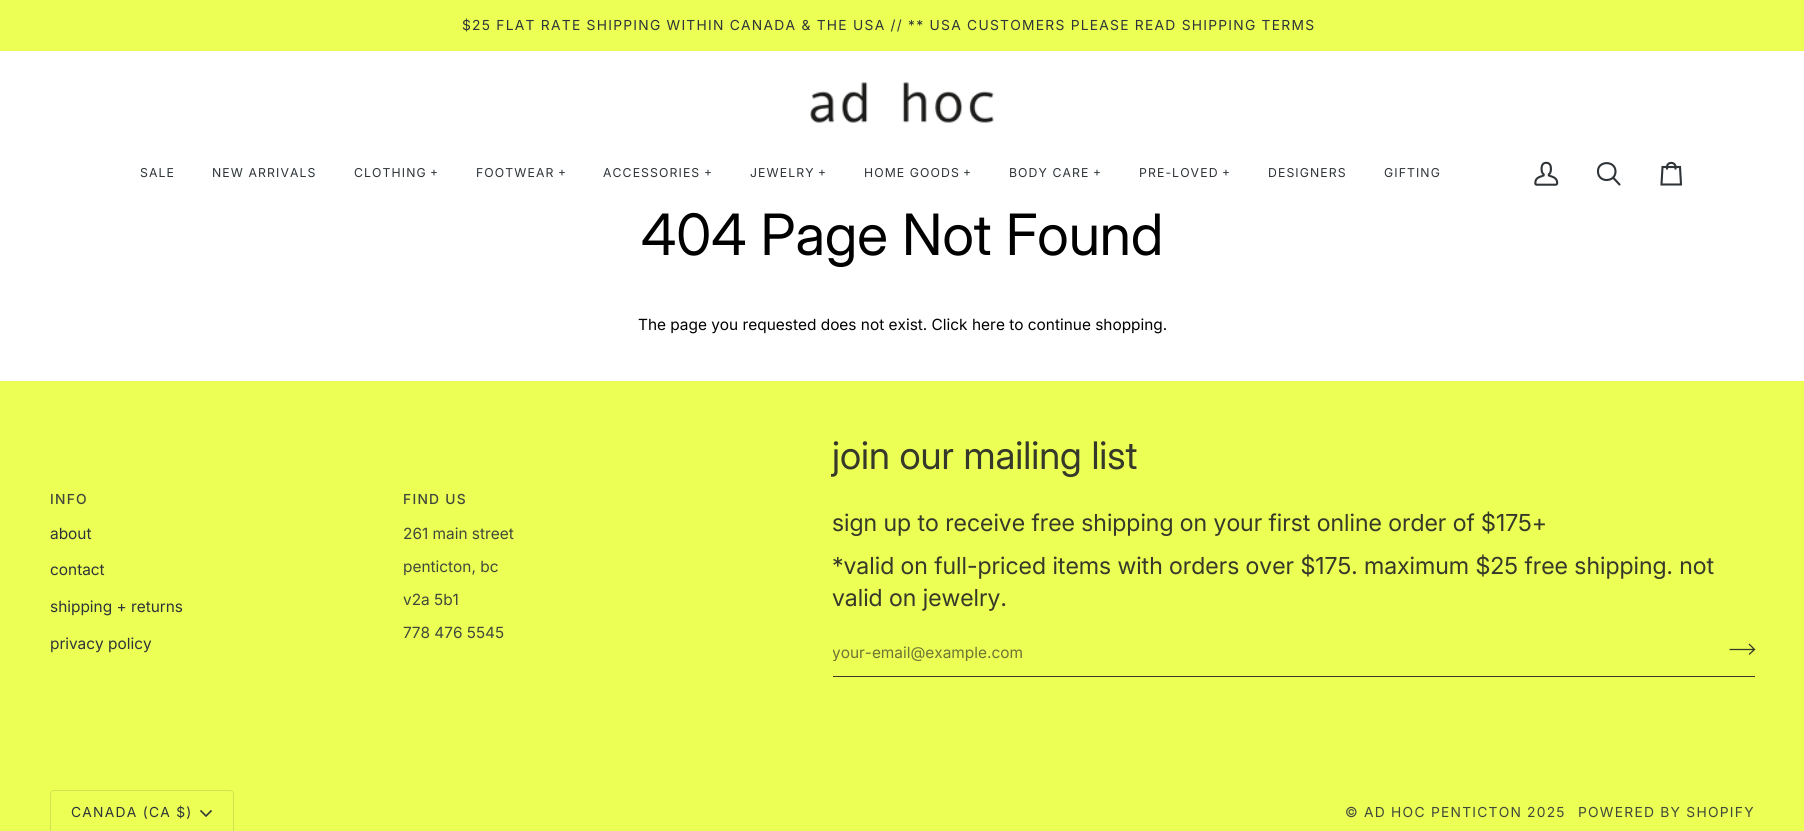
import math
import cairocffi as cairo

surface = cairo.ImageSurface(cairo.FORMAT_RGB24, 1804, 831)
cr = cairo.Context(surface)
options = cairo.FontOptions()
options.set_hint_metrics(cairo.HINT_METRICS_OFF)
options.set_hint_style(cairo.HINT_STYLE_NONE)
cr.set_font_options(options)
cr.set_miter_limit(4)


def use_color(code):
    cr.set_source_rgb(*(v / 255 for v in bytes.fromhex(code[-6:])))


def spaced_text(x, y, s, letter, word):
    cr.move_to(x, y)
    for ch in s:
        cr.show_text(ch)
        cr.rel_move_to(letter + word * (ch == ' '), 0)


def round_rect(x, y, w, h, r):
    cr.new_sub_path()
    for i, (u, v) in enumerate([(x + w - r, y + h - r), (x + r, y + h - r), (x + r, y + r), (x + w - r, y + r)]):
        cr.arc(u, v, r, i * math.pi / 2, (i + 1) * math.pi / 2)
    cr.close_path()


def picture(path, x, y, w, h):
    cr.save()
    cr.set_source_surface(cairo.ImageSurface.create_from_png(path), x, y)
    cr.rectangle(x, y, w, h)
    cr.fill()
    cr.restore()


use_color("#ffffff")
cr.paint()
use_color("#ebff54")
cr.rectangle(0, 0, 1804, 51)
cr.fill()
cr.select_font_face("Inter")
cr.set_font_size(13.8)
use_color("#2e3438")
spaced_text(462, 30, "$25 FLAT RATE SHIPPING WITHIN CANADA & THE USA // ** USA CUSTOMERS PLEASE READ SHIPPING TERMS", 1.25, 0)
picture("img1.png", 810, 82, 184, 41)
cr.set_font_size(12.25)
spaced_text(140, 177, "SALE", 1.1, 0)
spaced_text(212, 177, "NEW ARRIVALS", 1.1, 0)
spaced_text(354, 177, "CLOTHING", 1.1, 0)
cr.set_font_size(12)
cr.move_to(430, 176)
cr.show_text("+")
cr.set_font_size(12.25)
spaced_text(476, 177, "FOOTWEAR", 1.1, 0)
cr.set_font_size(12)
cr.move_to(558, 176)
cr.show_text("+")
cr.set_font_size(12.25)
spaced_text(603, 177, "ACCESSORIES", 1.1, 0)
cr.set_font_size(12)
cr.move_to(704, 176)
cr.show_text("+")
cr.set_font_size(12.25)
spaced_text(750, 177, "JEWELRY", 1.1, 0)
cr.set_font_size(12)
cr.move_to(818, 176)
cr.show_text("+")
cr.set_font_size(12.25)
spaced_text(864, 177, "HOME GOODS", 1.1, 0)
cr.set_font_size(12)
cr.move_to(963, 176)
cr.show_text("+")
cr.set_font_size(12.25)
spaced_text(1009, 177, "BODY CARE", 1.1, 0)
cr.set_font_size(12)
cr.move_to(1093, 176)
cr.show_text("+")
cr.set_font_size(12.25)
spaced_text(1139, 177, "PRE-LOVED", 1.1, 0)
cr.set_font_size(12)
cr.move_to(1222, 176)
cr.show_text("+")
cr.set_font_size(12.25)
spaced_text(1268, 177, "DESIGNERS", 1.1, 0)
spaced_text(1384, 177, "GIFTING", 1.1, 0)
picture("img2.png", 1534, 161, 25, 25)
cr.new_path()
cr.move_to(1615.5, 171.5)
cr.curve_to(1615.5, 182.5, 1598.5, 183, 1598, 172)
cr.curve_to(1597, 160.5, 1615.5, 160, 1615.5, 171.5)
cr.close_path()
cr.move_to(1619.5, 184.5)
cr.line_to(1613, 177.5)
cr.close_path()
cr.set_line_width(2.1)
cr.set_line_cap(cairo.LINE_CAP_ROUND)
cr.set_line_join(cairo.LINE_JOIN_ROUND)
cr.stroke()
cr.new_path()
cr.move_to(1675.5, 169.5)
cr.line_to(1675.5, 167)
cr.line_to(1680, 167)
cr.line_to(1681, 184.5)
cr.line_to(1661.5, 184.5)
cr.line_to(1662.5, 167)
cr.line_to(1667, 167)
cr.curve_to(1667, 161.5, 1675.5, 161.5, 1675.5, 167)
cr.line_to(1667, 167)
cr.line_to(1667, 169.5)
cr.set_line_cap(cairo.LINE_CAP_BUTT)
cr.set_line_join(cairo.LINE_JOIN_MITER)
cr.stroke()
cr.select_font_face("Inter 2")
cr.set_font_size(57)
use_color("#000000")
cr.move_to(641, 255)
cr.show_text("404 Page Not Found")
cr.select_font_face("Inter")
cr.set_font_size(15.4)
cr.move_to(638, 330)
cr.show_text("The page you requested does not exist. Click")
cr.move_to(972, 330)
cr.show_text("here to continue shopping.")
use_color("#ebff54")
cr.rectangle(0, 381, 1804, 450)
cr.fill()
cr.select_font_face("Inter Medium")
cr.set_font_size(13.8)
use_color("#41483b")
spaced_text(50, 504, "INFO", 1.25, 0)
cr.select_font_face("Inter")
cr.set_font_size(15.4)
use_color("#2e3438")
cr.move_to(50, 539)
cr.show_text("about")
cr.move_to(50, 575)
cr.show_text("contact")
cr.move_to(50, 612)
cr.show_text("shipping + returns")
cr.move_to(50, 649)
cr.show_text("privacy policy")
cr.select_font_face("Inter Medium")
cr.set_font_size(13.8)
use_color("#41483b")
spaced_text(403, 504, "FIND US", 1.25, 0)
cr.select_font_face("Inter")
cr.set_font_size(15.4)
cr.move_to(403, 539)
cr.show_text("261 main street")
cr.move_to(403, 572)
cr.show_text("penticton, bc")
cr.move_to(403, 605)
cr.show_text("v2a 5b1")
cr.move_to(403, 638)
cr.show_text("778 476 5545")
cr.select_font_face("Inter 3")
cr.set_font_size(38)
use_color("#363929")
cr.move_to(832, 469)
cr.show_text("join our mailing list")
cr.select_font_face("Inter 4")
cr.set_font_size(23.4)
cr.move_to(832, 531)
cr.show_text("sign up to receive free shipping on your first online order of $175+")
cr.move_to(832, 574)
cr.show_text("*valid on full-priced items with orders over $175. maximum $25 free shipping. not")
cr.move_to(832, 606)
cr.show_text("valid on jewelry.")
cr.rectangle(833, 676, 922, 1)
cr.fill()
cr.save()
cr.rectangle(833, 643, 868, 18)
cr.clip()
cr.select_font_face("Inter")
cr.set_font_size(15.4)
use_color("#6c7435")
cr.move_to(832, 658)
cr.show_text("your-email@example.com")
cr.restore()
cr.new_path()
cr.move_to(1749, 644)
cr.line_to(1754.5, 649.5)
cr.line_to(1749, 654.5)
cr.move_to(1729.5, 649.5)
cr.line_to(1754.5, 649.5)
cr.set_line_width(1.3)
cr.stroke()
round_rect(50.5, 790.5, 183, 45, 3.5)
use_color("#cfe150")
cr.set_line_width(1)
cr.stroke()
cr.select_font_face("Inter")
cr.set_font_size(13.8)
use_color("#2e3438")
spaced_text(71, 817, "CANADA (CA $)", 1.25, 0)
cr.new_path()
cr.move_to(201, 811)
cr.line_to(206, 816)
cr.line_to(211, 811)
cr.set_line_width(1.6)
cr.set_line_cap(cairo.LINE_CAP_SQUARE)
cr.stroke()
use_color("#41483b")
spaced_text(1345, 817, "© AD HOC PENTICTON", 1.25, 0)
spaced_text(1527, 817, "2025", 1.25, 0)
spaced_text(1578, 817, "POWERED BY SHOPIFY", 1.25, 0)
surface.write_to_png("result.png")
